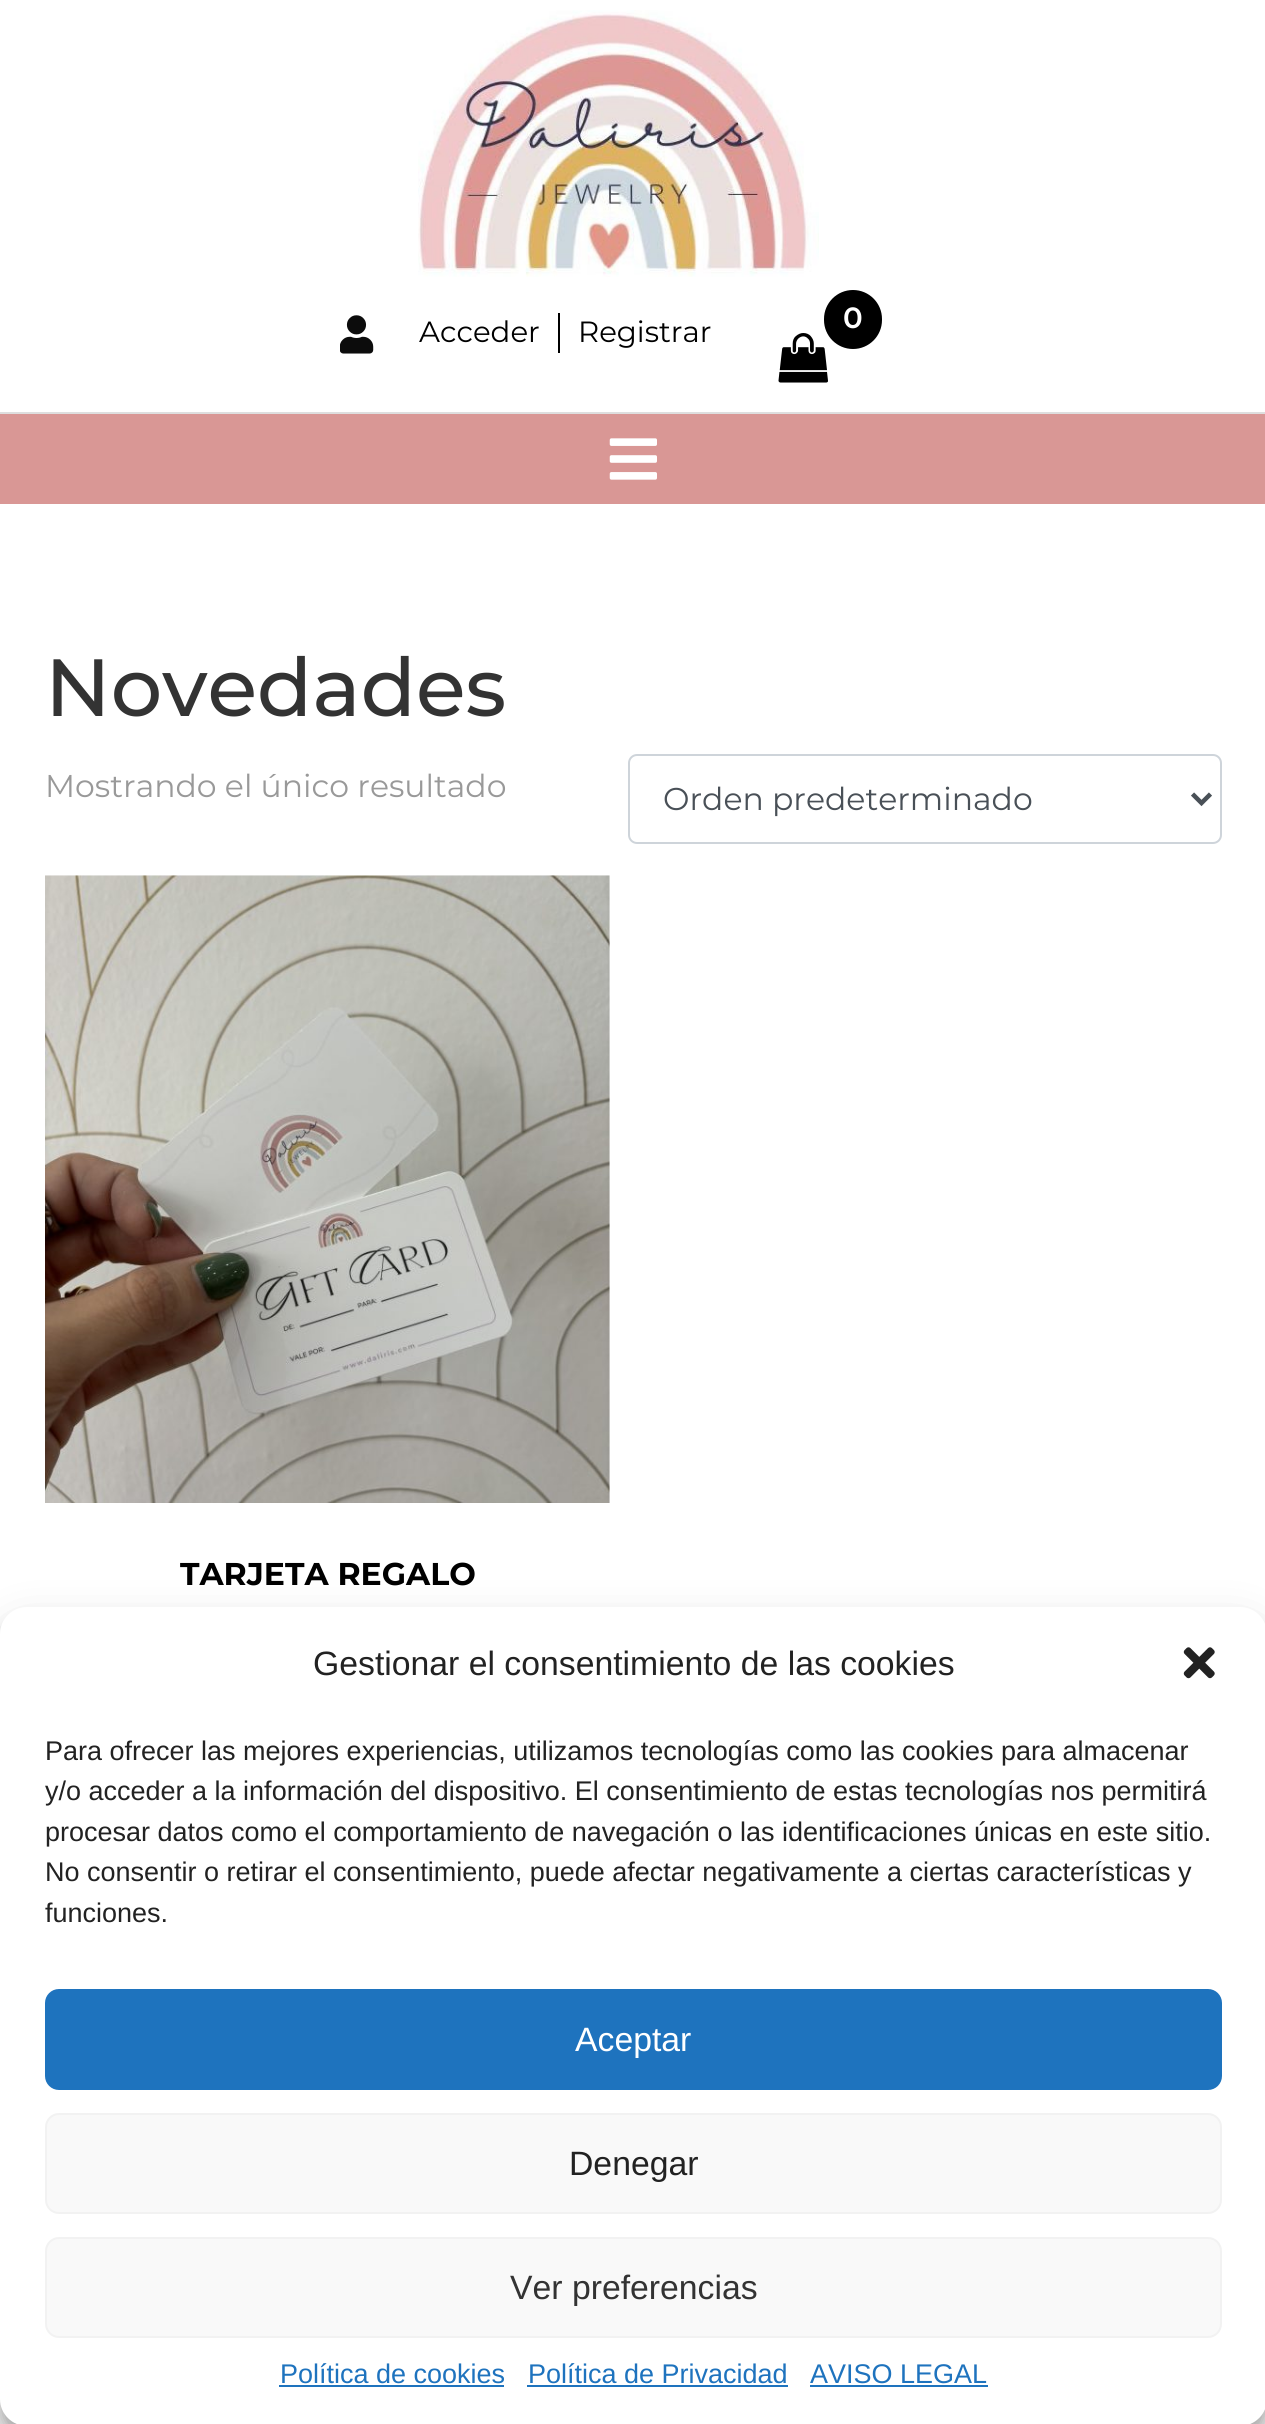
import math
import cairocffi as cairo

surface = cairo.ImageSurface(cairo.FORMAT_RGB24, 1265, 2424)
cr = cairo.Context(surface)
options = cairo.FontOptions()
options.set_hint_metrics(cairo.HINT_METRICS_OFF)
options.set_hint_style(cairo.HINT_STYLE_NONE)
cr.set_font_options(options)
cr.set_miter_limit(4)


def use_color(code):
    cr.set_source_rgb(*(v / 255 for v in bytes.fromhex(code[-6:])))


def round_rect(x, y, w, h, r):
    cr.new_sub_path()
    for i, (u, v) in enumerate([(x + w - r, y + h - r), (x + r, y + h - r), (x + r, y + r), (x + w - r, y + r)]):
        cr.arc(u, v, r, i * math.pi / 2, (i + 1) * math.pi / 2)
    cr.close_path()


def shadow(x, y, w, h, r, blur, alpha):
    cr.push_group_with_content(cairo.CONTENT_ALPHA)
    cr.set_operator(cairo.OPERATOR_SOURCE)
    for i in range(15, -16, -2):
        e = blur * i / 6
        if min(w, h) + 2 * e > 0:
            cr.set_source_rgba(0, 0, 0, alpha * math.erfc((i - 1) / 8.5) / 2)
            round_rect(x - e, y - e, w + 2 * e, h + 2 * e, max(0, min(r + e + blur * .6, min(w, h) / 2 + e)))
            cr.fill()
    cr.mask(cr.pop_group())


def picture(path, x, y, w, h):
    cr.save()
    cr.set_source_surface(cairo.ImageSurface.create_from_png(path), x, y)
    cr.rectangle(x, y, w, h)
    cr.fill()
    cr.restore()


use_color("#ffffff")
cr.paint()
use_color("#dedede")
cr.rectangle(0, 412, 1265, 2)
cr.fill()
picture("img1.png", 418, 10, 401, 267)
picture("img2.png", 340, 315, 34, 39)
cr.select_font_face("Montserrat")
cr.set_font_size(29.25)
use_color("#000000")
cr.move_to(419, 342)
cr.show_text("Acceder")
cr.rectangle(558, 313, 2, 40)
cr.fill()
cr.move_to(578, 342)
cr.show_text("Registrar")
picture("img3.png", 778, 333, 50, 50)
round_rect(824, 290, 58, 59, 29)
cr.fill()
cr.select_font_face("Montserrat SemiBold")
use_color("#ffffff")
cr.move_to(843, 328)
cr.show_text("0")
use_color("#d99795")
cr.rectangle(0, 414, 1265, 90)
cr.fill()
picture("img4.png", 609, 438, 48, 42)
cr.select_font_face("Montserrat Medium")
cr.set_font_size(81)
use_color("#333333")
cr.move_to(45, 716)
cr.show_text("Novedades")
cr.select_font_face("Montserrat")
cr.set_font_size(31.5)
use_color("#999999")
cr.move_to(45, 797)
cr.show_text("Mostrando el único resultado")
round_rect(629, 755, 592, 88, 8)
use_color("#ced4da")
cr.stroke()
cr.new_path()
cr.move_to(1192.5, 794)
cr.line_to(1201.5, 803)
cr.line_to(1210.5, 794)
use_color("#495057")
cr.set_line_width(4.5)
cr.stroke()
cr.move_to(663, 810)
cr.show_text("Orden predeterminado")
picture("img5.png", 45, 875, 565, 628)
cr.select_font_face("Montserrat", cairo.FONT_SLANT_NORMAL, cairo.FONT_WEIGHT_BOLD)
use_color("#000000")
cr.move_to(180, 1585)
cr.show_text("TARJETA REGALO")
use_color("#000000")
shadow(0, 1620, 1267, 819, 27, 7, 0.23)
shadow(0, 1629, 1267, 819, 27, 22.5, 0.19)
use_color("#ffffff")
round_rect(0, 1607, 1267, 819, 27)
cr.fill()
cr.select_font_face("Liberation Sans")
cr.set_font_size(33.75)
use_color("#222222")
cr.move_to(313, 1675)
cr.show_text("Gestionar el consentimiento de las cookies")
picture("img6.png", 1183, 1647, 32, 32)
cr.set_font_size(27)
cr.move_to(45, 1760)
cr.show_text("Para ofrecer las mejores experiencias, utilizamos tecnologías como las cookies para almacenar")
cr.move_to(45, 1800)
cr.show_text("y/o acceder a la información del dispositivo. El consentimiento de estas tecnologías nos permitirá")
cr.move_to(45, 1841)
cr.show_text("procesar datos como el comportamiento de navegación o las identificaciones únicas en este sitio.")
cr.move_to(45, 1881)
cr.show_text("No consentir o retirar el consentimiento, puede afectar negativamente a ciertas características y")
cr.move_to(45, 1922)
cr.show_text("funciones.")
use_color("#1e73be")
round_rect(46, 1990, 1175, 99, 13)
cr.fill_preserve()
cr.set_line_width(2)
cr.stroke()
cr.set_font_size(33.75)
use_color("#ffffff")
cr.move_to(575, 2051)
cr.show_text("Aceptar")
use_color("#f9f9f9")
round_rect(46, 2114, 1175, 99, 13)
cr.fill_preserve()
use_color("#f2f2f2")
cr.stroke()
use_color("#222222")
cr.move_to(569, 2175)
cr.show_text("Denegar")
use_color("#f9f9f9")
round_rect(46, 2238, 1175, 99, 13)
cr.fill_preserve()
use_color("#f2f2f2")
cr.stroke()
use_color("#333333")
cr.move_to(510, 2299)
cr.show_text("Ver preferencias")
cr.set_font_size(27)
use_color("#1e73be")
cr.move_to(280, 2383)
cr.show_text("Política de cookies")
cr.rectangle(279, 2385, 225, 2)
cr.fill()
cr.move_to(528, 2383)
cr.show_text("Política de Privacidad")
cr.rectangle(527, 2385, 261, 2)
cr.fill()
cr.move_to(810, 2383)
cr.show_text("AVISO LEGAL")
cr.rectangle(810, 2385, 178, 2)
cr.fill()
surface.write_to_png("result.png")
